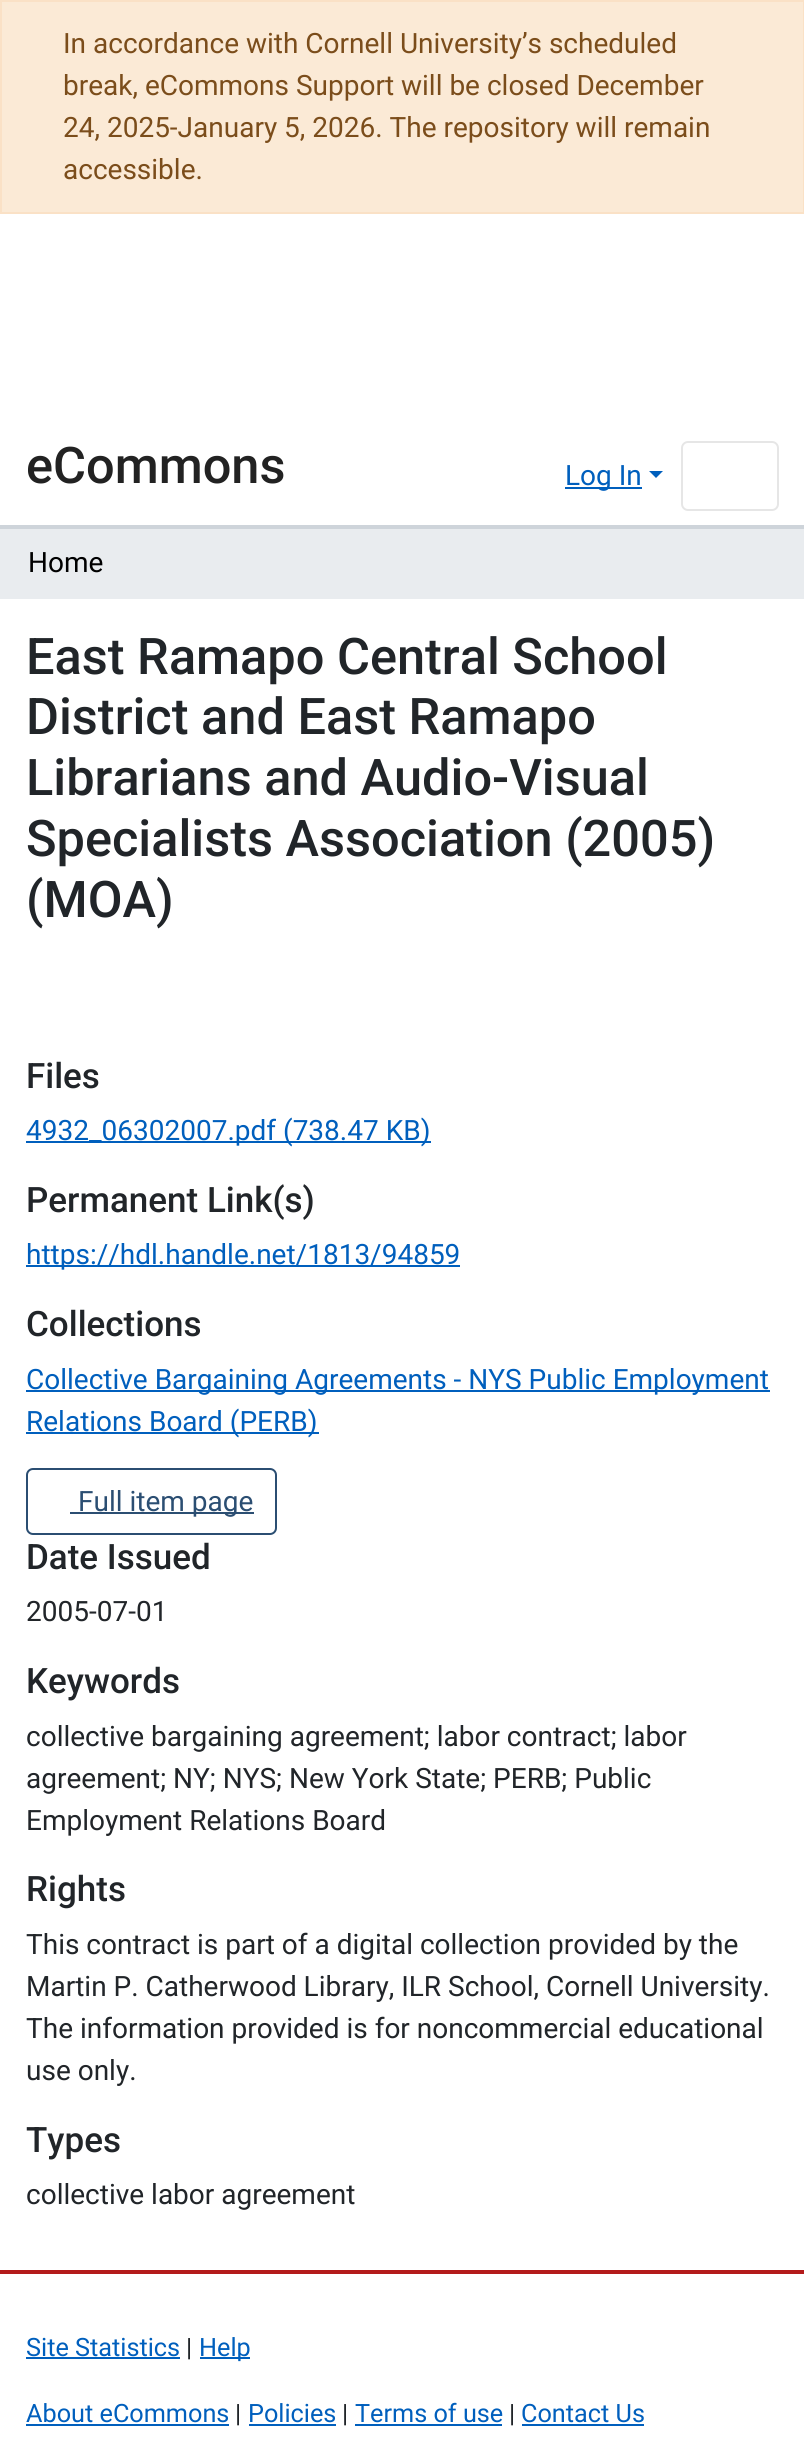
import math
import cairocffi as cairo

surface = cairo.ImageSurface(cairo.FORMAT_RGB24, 804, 2453)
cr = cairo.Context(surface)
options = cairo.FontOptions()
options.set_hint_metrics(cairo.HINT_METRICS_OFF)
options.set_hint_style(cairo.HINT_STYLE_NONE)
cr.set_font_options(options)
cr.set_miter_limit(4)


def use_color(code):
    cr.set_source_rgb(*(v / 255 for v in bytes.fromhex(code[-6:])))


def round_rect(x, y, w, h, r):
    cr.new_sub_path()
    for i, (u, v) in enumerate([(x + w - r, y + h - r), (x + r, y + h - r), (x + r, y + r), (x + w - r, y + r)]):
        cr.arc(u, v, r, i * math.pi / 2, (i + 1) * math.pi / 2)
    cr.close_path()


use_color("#ffffff")
cr.paint()
use_color("#fbead6")
cr.rectangle(1, 1, 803, 212)
cr.fill_preserve()
use_color("#fae1c6")
cr.stroke()
cr.select_font_face("Roboto")
cr.set_font_size(28)
use_color("#7b4d1b")
cr.move_to(63, 53)
cr.show_text("In accordance with Cornell University’s scheduled")
cr.move_to(63, 95)
cr.show_text("break, eCommons Support will be closed December")
cr.move_to(63, 137)
cr.show_text("24, 2025-January 5, 2026. The repository will remain")
cr.move_to(63, 179)
cr.show_text("accessible.")
use_color("#ced4da")
cr.rectangle(0, 525, 804, 4)
cr.fill()
cr.select_font_face("Roboto Medium")
cr.set_font_size(50.5)
use_color("#222222")
cr.move_to(26, 483)
cr.show_text("eCommons")
use_color("#005fbd")
cr.rectangle(565, 487, 77, 2)
cr.fill()
cr.select_font_face("Roboto")
cr.set_font_size(28)
cr.move_to(565, 485)
cr.show_text("Log In")
cr.new_path()
cr.move_to(649, 471)
cr.line_to(663, 471)
cr.line_to(656, 478)
cr.close_path()
cr.fill()
round_rect(682, 442, 96, 68, 6)
use_color("#e6e6e6")
cr.stroke()
use_color("#e9ecef")
cr.rectangle(0, 529, 804, 70)
cr.fill()
use_color("#000000")
cr.move_to(28, 572)
cr.show_text("Home")
cr.select_font_face("Roboto Medium")
cr.set_font_size(50.5)
use_color("#212529")
cr.move_to(26, 674)
cr.show_text("East Ramapo Central School")
cr.move_to(26, 734)
cr.show_text("District and East Ramapo")
cr.move_to(26, 795)
cr.show_text("Librarians and Audio-Visual")
cr.move_to(26, 856)
cr.show_text("Specialists Association (2005)")
cr.move_to(26, 917)
cr.show_text("(MOA)")
cr.set_font_size(35)
cr.move_to(26, 1088)
cr.show_text("Files")
use_color("#005fbd")
cr.rectangle(26, 1141, 405, 2)
cr.fill()
cr.select_font_face("Roboto")
cr.set_font_size(28)
cr.move_to(26, 1140)
cr.show_text("4932_06302007.pdf (738.47 KB)")
cr.select_font_face("Roboto Medium")
cr.set_font_size(35)
use_color("#212529")
cr.move_to(26, 1212)
cr.show_text("Permanent Link(s)")
use_color("#005fbd")
cr.rectangle(26, 1265, 434, 2)
cr.fill()
cr.select_font_face("Roboto")
cr.set_font_size(28)
cr.move_to(26, 1264)
cr.show_text("https://hdl.handle.net/1813/94859")
cr.select_font_face("Roboto Medium")
cr.set_font_size(35)
use_color("#212529")
cr.move_to(26, 1336)
cr.show_text("Collections")
use_color("#005fbd")
cr.rectangle(26, 1390, 744, 2)
cr.fill()
cr.select_font_face("Roboto")
cr.set_font_size(28)
cr.move_to(26, 1389)
cr.show_text("Collective Bargaining Agreements - NYS Public Employment")
cr.rectangle(26, 1432, 293, 2)
cr.fill()
cr.move_to(26, 1431)
cr.show_text("Relations Board (PERB)")
round_rect(27, 1469, 249, 65, 6)
use_color("#2b4e72")
cr.stroke()
cr.rectangle(70, 1512, 184, 2)
cr.fill()
cr.move_to(78, 1511)
cr.show_text("Full item page")
cr.select_font_face("Roboto Medium")
cr.set_font_size(35)
use_color("#212529")
cr.move_to(26, 1569)
cr.show_text("Date Issued")
cr.select_font_face("Roboto")
cr.set_font_size(28)
cr.move_to(26, 1621)
cr.show_text("2005-07-01")
cr.select_font_face("Roboto Medium")
cr.set_font_size(35)
cr.move_to(26, 1693)
cr.show_text("Keywords")
cr.select_font_face("Roboto")
cr.set_font_size(28)
cr.move_to(26, 1746)
cr.show_text("collective bargaining agreement; labor contract; labor")
cr.move_to(26, 1788)
cr.show_text("agreement; NY; NYS; New York State; PERB; Public")
cr.move_to(26, 1830)
cr.show_text("Employment Relations Board")
cr.select_font_face("Roboto Medium")
cr.set_font_size(35)
cr.move_to(26, 1901)
cr.show_text("Rights")
cr.select_font_face("Roboto")
cr.set_font_size(28)
cr.move_to(26, 1954)
cr.show_text("This contract is part of a digital collection provided by the")
cr.move_to(26, 1996)
cr.show_text("Martin P. Catherwood Library, ILR School, Cornell University.")
cr.move_to(26, 2038)
cr.show_text("The information provided is for noncommercial educational")
cr.move_to(26, 2080)
cr.show_text("use only.")
cr.select_font_face("Roboto Medium")
cr.set_font_size(35)
cr.move_to(26, 2152)
cr.show_text("Types")
cr.select_font_face("Roboto")
cr.set_font_size(28)
cr.move_to(26, 2204)
cr.show_text("collective labor agreement")
use_color("#b31b1b")
cr.rectangle(0, 2270, 804, 4)
cr.fill()
cr.set_font_size(25.25)
use_color("#005fbd")
cr.move_to(26, 2356)
cr.show_text("Site Statistics")
cr.rectangle(26, 2357, 154, 2)
cr.fill()
use_color("#212529")
cr.move_to(186, 2356)
cr.show_text("|")
use_color("#005fbd")
cr.rectangle(200, 2357, 50, 2)
cr.fill()
cr.move_to(199, 2356)
cr.show_text("Help")
cr.move_to(26, 2422)
cr.show_text("About eCommons")
cr.rectangle(26, 2424, 203, 2)
cr.fill()
use_color("#212529")
cr.move_to(235, 2422)
cr.show_text("|")
use_color("#005fbd")
cr.move_to(248, 2422)
cr.show_text("Policies")
cr.rectangle(249, 2424, 87, 2)
cr.fill()
use_color("#212529")
cr.move_to(342, 2422)
cr.show_text("|")
use_color("#005fbd")
cr.move_to(355, 2422)
cr.show_text("Terms of use")
cr.rectangle(355, 2424, 147, 2)
cr.fill()
use_color("#212529")
cr.move_to(509, 2422)
cr.show_text("|")
use_color("#005fbd")
cr.move_to(521, 2422)
cr.show_text("Contact Us")
cr.rectangle(522, 2424, 122, 2)
cr.fill()
surface.write_to_png("result.png")
